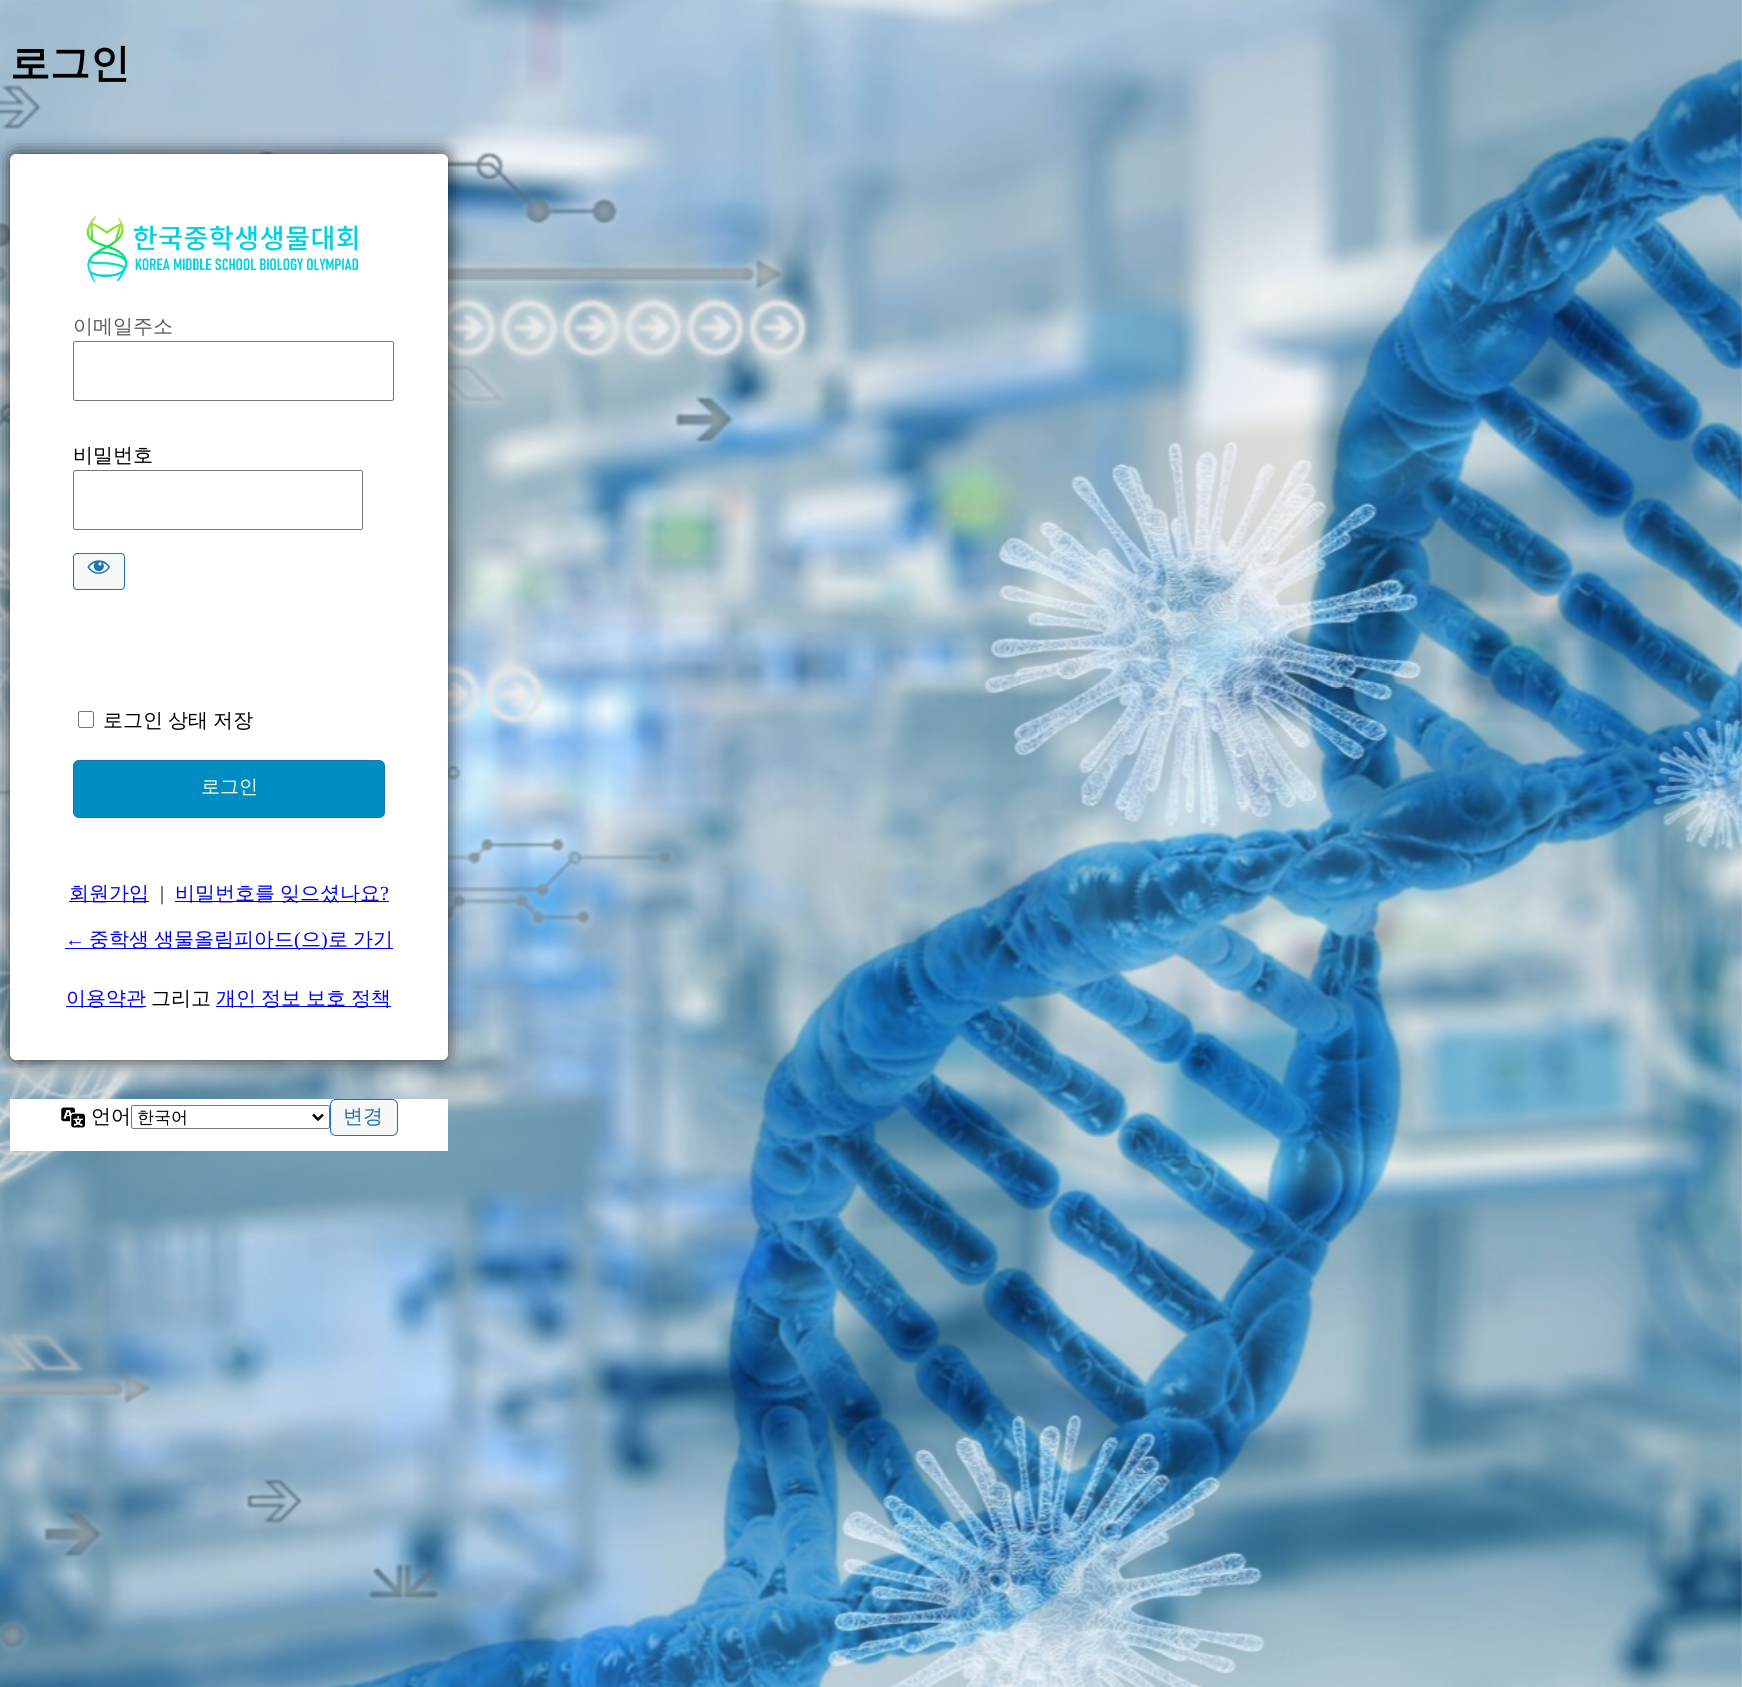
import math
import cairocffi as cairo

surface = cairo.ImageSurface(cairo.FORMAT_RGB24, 1742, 1687)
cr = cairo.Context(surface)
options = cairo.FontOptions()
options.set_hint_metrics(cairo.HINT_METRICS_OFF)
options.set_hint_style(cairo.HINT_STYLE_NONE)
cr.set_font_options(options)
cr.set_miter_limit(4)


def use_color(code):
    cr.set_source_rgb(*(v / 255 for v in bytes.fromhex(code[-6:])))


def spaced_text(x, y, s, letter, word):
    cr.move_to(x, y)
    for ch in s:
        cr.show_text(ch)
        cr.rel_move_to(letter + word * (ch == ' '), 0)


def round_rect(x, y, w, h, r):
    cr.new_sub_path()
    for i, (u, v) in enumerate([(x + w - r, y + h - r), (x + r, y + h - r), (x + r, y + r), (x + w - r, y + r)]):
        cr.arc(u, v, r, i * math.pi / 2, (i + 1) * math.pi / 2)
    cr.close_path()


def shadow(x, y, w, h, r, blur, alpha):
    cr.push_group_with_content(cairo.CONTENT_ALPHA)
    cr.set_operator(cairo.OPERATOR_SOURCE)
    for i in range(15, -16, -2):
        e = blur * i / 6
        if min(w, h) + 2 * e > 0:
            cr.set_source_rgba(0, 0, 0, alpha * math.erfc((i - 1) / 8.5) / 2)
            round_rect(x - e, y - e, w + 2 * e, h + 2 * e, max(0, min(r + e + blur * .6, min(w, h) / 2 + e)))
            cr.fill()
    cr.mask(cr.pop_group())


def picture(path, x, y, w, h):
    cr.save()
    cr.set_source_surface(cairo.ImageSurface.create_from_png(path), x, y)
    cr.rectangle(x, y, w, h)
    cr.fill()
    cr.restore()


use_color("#ffffff")
cr.paint()
picture("img1.png", 0, 0, 1742, 1687)
cr.select_font_face("WenQuanYi Zen Hei", cairo.FONT_SLANT_NORMAL, cairo.FONT_WEIGHT_BOLD)
cr.set_font_size(40)
use_color("#000000")
cr.move_to(10, 77)
cr.show_text("로그인")
use_color("#000000")
shadow(10, 154, 438, 906, 6, 9.5, 0.8)
use_color("#ffffff")
round_rect(10, 154, 438, 906, 6)
cr.fill()
picture("img2.png", 86, 215, 273, 69)
cr.select_font_face("WenQuanYi Zen Hei Medium")
cr.set_font_size(20)
use_color("#555d66")
cr.move_to(73, 333)
cr.show_text("이메일주소")
round_rect(73.5, 341.5, 320, 59, 2)
use_color("#767676")
cr.set_line_width(1)
cr.stroke()
use_color("#000000")
cr.move_to(73, 462)
cr.show_text("비밀번호")
round_rect(73.5, 470.5, 289, 59, 2)
use_color("#767676")
cr.stroke()
use_color("#f6f7f7")
round_rect(73.5, 553.5, 51, 36, 3.5)
cr.fill_preserve()
use_color("#2271b1")
cr.stroke()
picture("img3.png", 87, 560, 23, 14)
round_rect(78.5, 711.5, 15, 16, 2)
use_color("#767676")
cr.stroke()
use_color("#000000")
spaced_text(103, 727, "로그인 상태 저장", 0, -1)
use_color("#008ec2")
round_rect(73.5, 760.5, 311, 57, 5.5)
cr.fill_preserve()
use_color("#2271b1")
cr.stroke()
cr.set_font_size(19)
use_color("#ffffff")
cr.move_to(201, 793)
cr.show_text("로그인")
use_color("#0000ee")
cr.rectangle(69, 901, 80, 1)
cr.fill()
cr.set_font_size(20)
cr.move_to(69, 900)
cr.show_text("회원가입")
cr.select_font_face("Liberation Serif")
use_color("#000000")
cr.move_to(160, 900)
cr.show_text("|")
use_color("#0000ee")
cr.rectangle(175, 901, 214, 1)
cr.fill()
cr.select_font_face("WenQuanYi Zen Hei Medium")
spaced_text(175, 900, "비밀번호를 잊으셨나요", 0, -1)
cr.select_font_face("Liberation Serif")
cr.move_to(380, 900)
cr.show_text("?")
cr.move_to(65, 946)
cr.show_text("←")
cr.rectangle(65, 948, 328, 1)
cr.fill()
cr.select_font_face("WenQuanYi Zen Hei Medium")
spaced_text(89, 946, "중학생 생물올림피아드", 0, -1)
cr.select_font_face("Liberation Serif")
cr.move_to(294, 946)
cr.show_text("(")
cr.select_font_face("WenQuanYi Zen Hei Medium")
cr.move_to(301, 946)
cr.show_text("으")
cr.select_font_face("Liberation Serif")
cr.move_to(321, 946)
cr.show_text(")")
cr.select_font_face("WenQuanYi Zen Hei Medium")
spaced_text(328, 946, "로 가기", 0, -1)
cr.rectangle(66, 1006, 80, 1)
cr.fill()
cr.move_to(66, 1005)
cr.show_text("이용약관")
use_color("#000000")
cr.move_to(151, 1005)
cr.show_text("그리고")
use_color("#0000ee")
cr.rectangle(216, 1006, 175, 1)
cr.fill()
spaced_text(216, 1005, "개인 정보 보호 정책", 0, -1)
use_color("#ffffff")
cr.rectangle(10, 1099, 438, 52)
cr.fill()
picture("img4.png", 61, 1107, 24, 21)
use_color("#000000")
cr.move_to(91, 1123)
cr.show_text("언어")
round_rect(131.5, 1105.5, 198, 23, 2)
use_color("#767676")
cr.stroke()
cr.new_path()
cr.move_to(313, 1114.5)
cr.line_to(318, 1119.5)
cr.line_to(323, 1114.5)
use_color("#000000")
cr.set_line_width(2.5)
cr.stroke()
cr.set_font_size(17)
cr.move_to(137, 1123)
cr.show_text("한국어")
use_color("#f6f7f7")
round_rect(330.5, 1099.5, 67, 36, 5.5)
cr.fill_preserve()
use_color("#2271b1")
cr.set_line_width(1)
cr.stroke()
cr.set_font_size(20)
cr.move_to(343, 1123)
cr.show_text("변경")
surface.write_to_png("result.png")
